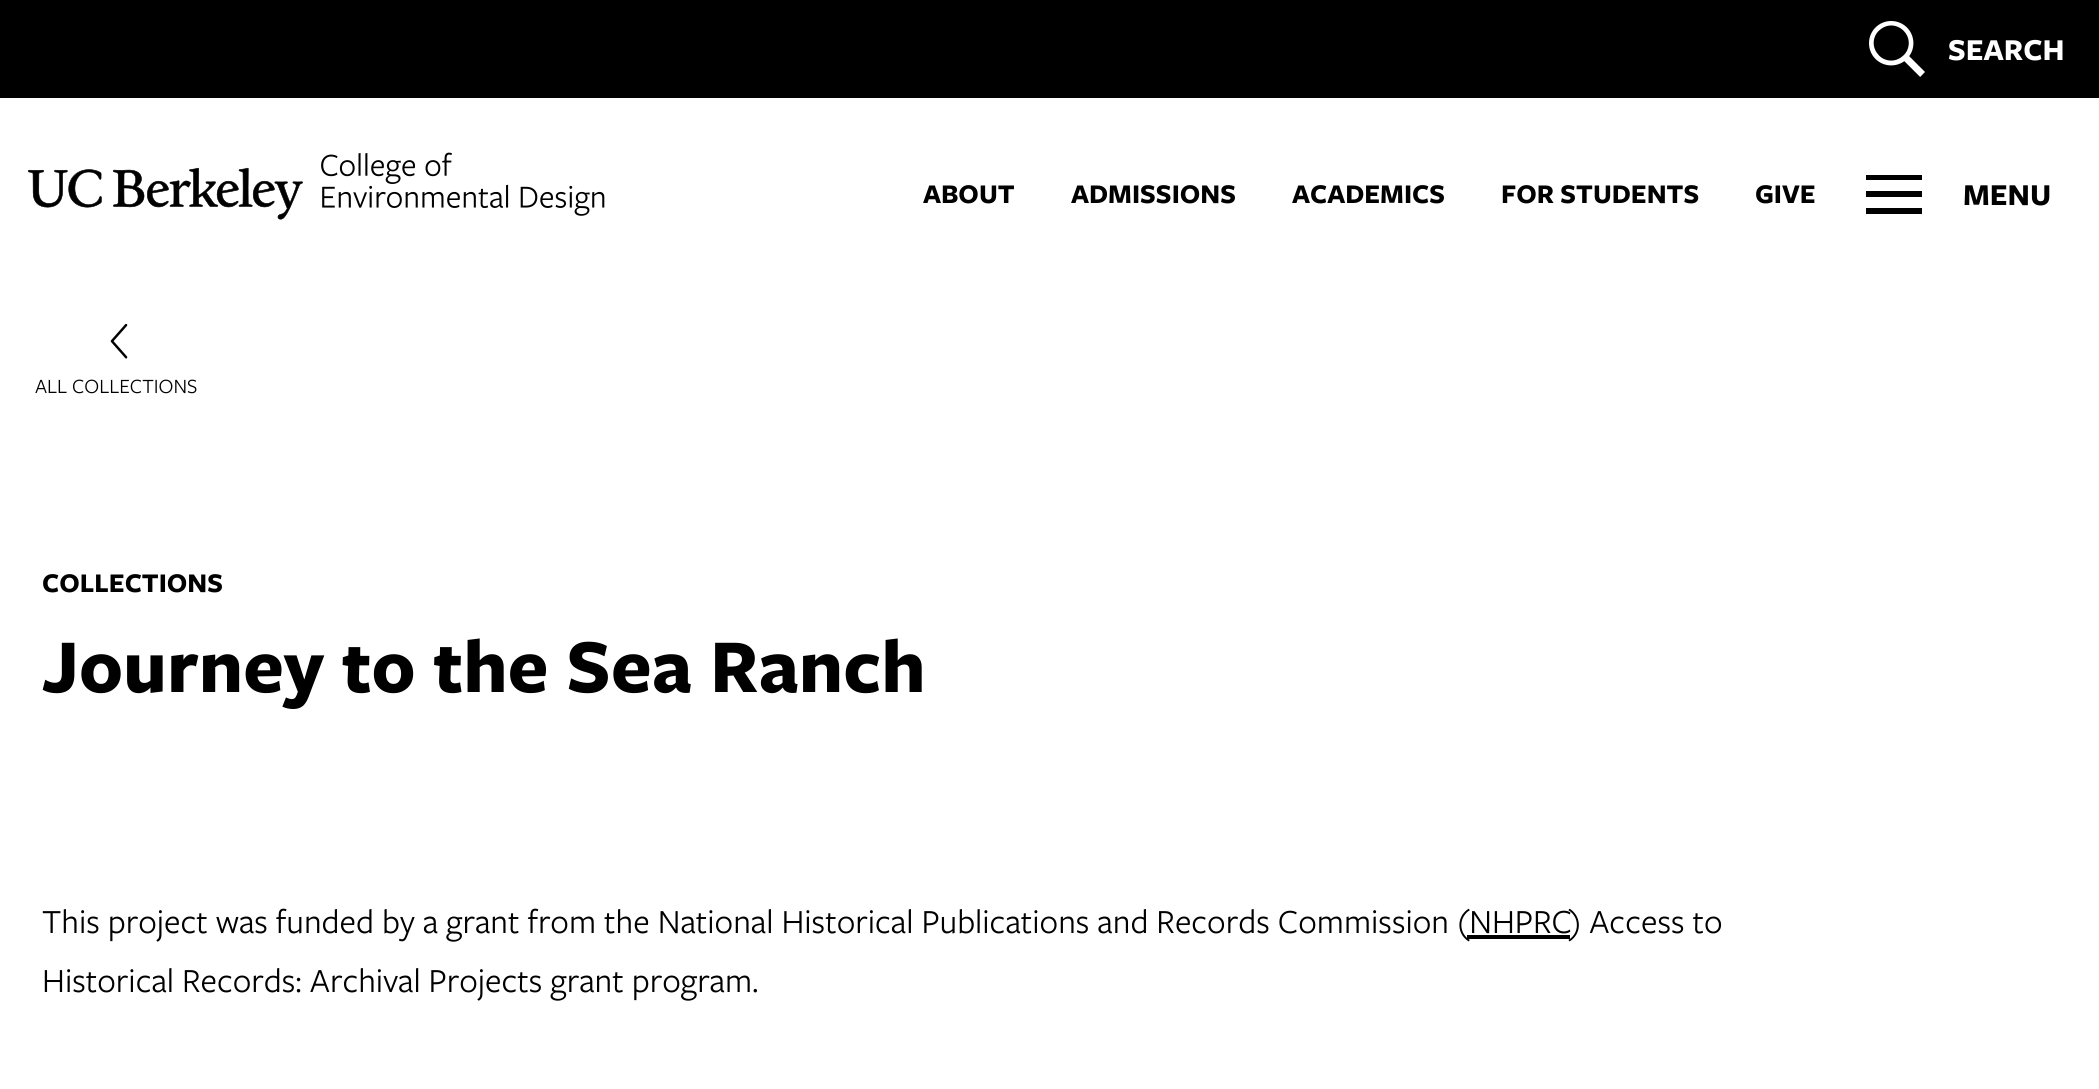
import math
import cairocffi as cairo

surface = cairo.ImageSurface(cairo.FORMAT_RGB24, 2099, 1089)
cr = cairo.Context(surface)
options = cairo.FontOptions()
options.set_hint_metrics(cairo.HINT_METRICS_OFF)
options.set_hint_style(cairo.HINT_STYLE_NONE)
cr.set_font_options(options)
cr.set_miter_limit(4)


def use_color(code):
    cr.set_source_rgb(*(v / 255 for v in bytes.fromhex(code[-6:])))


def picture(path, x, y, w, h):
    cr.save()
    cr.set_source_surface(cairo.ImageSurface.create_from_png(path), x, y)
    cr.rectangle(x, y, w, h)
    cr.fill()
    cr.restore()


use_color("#ffffff")
cr.paint()
use_color("#000000")
cr.rectangle(0, 0, 2099, 98)
cr.fill()
picture("img1.png", 1869, 21, 56, 56)
cr.select_font_face("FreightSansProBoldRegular", cairo.FONT_SLANT_NORMAL, cairo.FONT_WEIGHT_BOLD)
cr.set_font_size(31.5)
use_color("#ffffff")
cr.move_to(1948, 60)
cr.show_text("SEARCH")
picture("img2.png", 28, 152, 577, 68)
cr.set_font_size(28)
use_color("#000000")
cr.move_to(923, 203)
cr.show_text("ABOUT")
cr.move_to(1071, 203)
cr.show_text("ADMISSIONS")
cr.move_to(1292, 203)
cr.show_text("ACADEMICS")
cr.move_to(1501, 203)
cr.show_text("FOR STUDENTS")
cr.move_to(1755, 203)
cr.show_text("GIVE")
cr.new_path()
cr.move_to(1866, 175)
cr.line_to(1922, 175)
cr.line_to(1922, 180)
cr.line_to(1866, 180)
cr.close_path()
cr.move_to(1866, 191)
cr.line_to(1922, 191)
cr.line_to(1922, 197)
cr.line_to(1866, 197)
cr.close_path()
cr.move_to(1866, 208)
cr.line_to(1922, 208)
cr.line_to(1922, 214)
cr.line_to(1866, 214)
cr.close_path()
cr.fill()
cr.set_font_size(31.5)
cr.move_to(1963, 205)
cr.show_text("MENU")
picture("img3.png", 110, 324, 18, 35)
cr.select_font_face("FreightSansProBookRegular")
cr.set_font_size(21)
cr.move_to(35, 393)
cr.show_text("ALL COLLECTIONS")
cr.select_font_face("FreightSansProBoldRegular", cairo.FONT_SLANT_NORMAL, cairo.FONT_WEIGHT_BOLD)
cr.set_font_size(28)
cr.move_to(42, 592)
cr.show_text("COLLECTIONS")
cr.set_font_size(78.75)
cr.move_to(42, 692)
cr.show_text("Journey to the Sea Ranch")
cr.select_font_face("FreightSansProBookRegular")
cr.set_font_size(35)
cr.move_to(42, 933)
cr.show_text("This project was funded by a grant from the National Historical Publications and Records Commission (NHPRC")
cr.rectangle(1467, 935, 103, 4)
cr.fill()
cr.move_to(1569, 933)
cr.show_text(") Access to")
cr.move_to(42, 992)
cr.show_text("Historical Records: Archival Projects grant program.")
surface.write_to_png("result.png")
